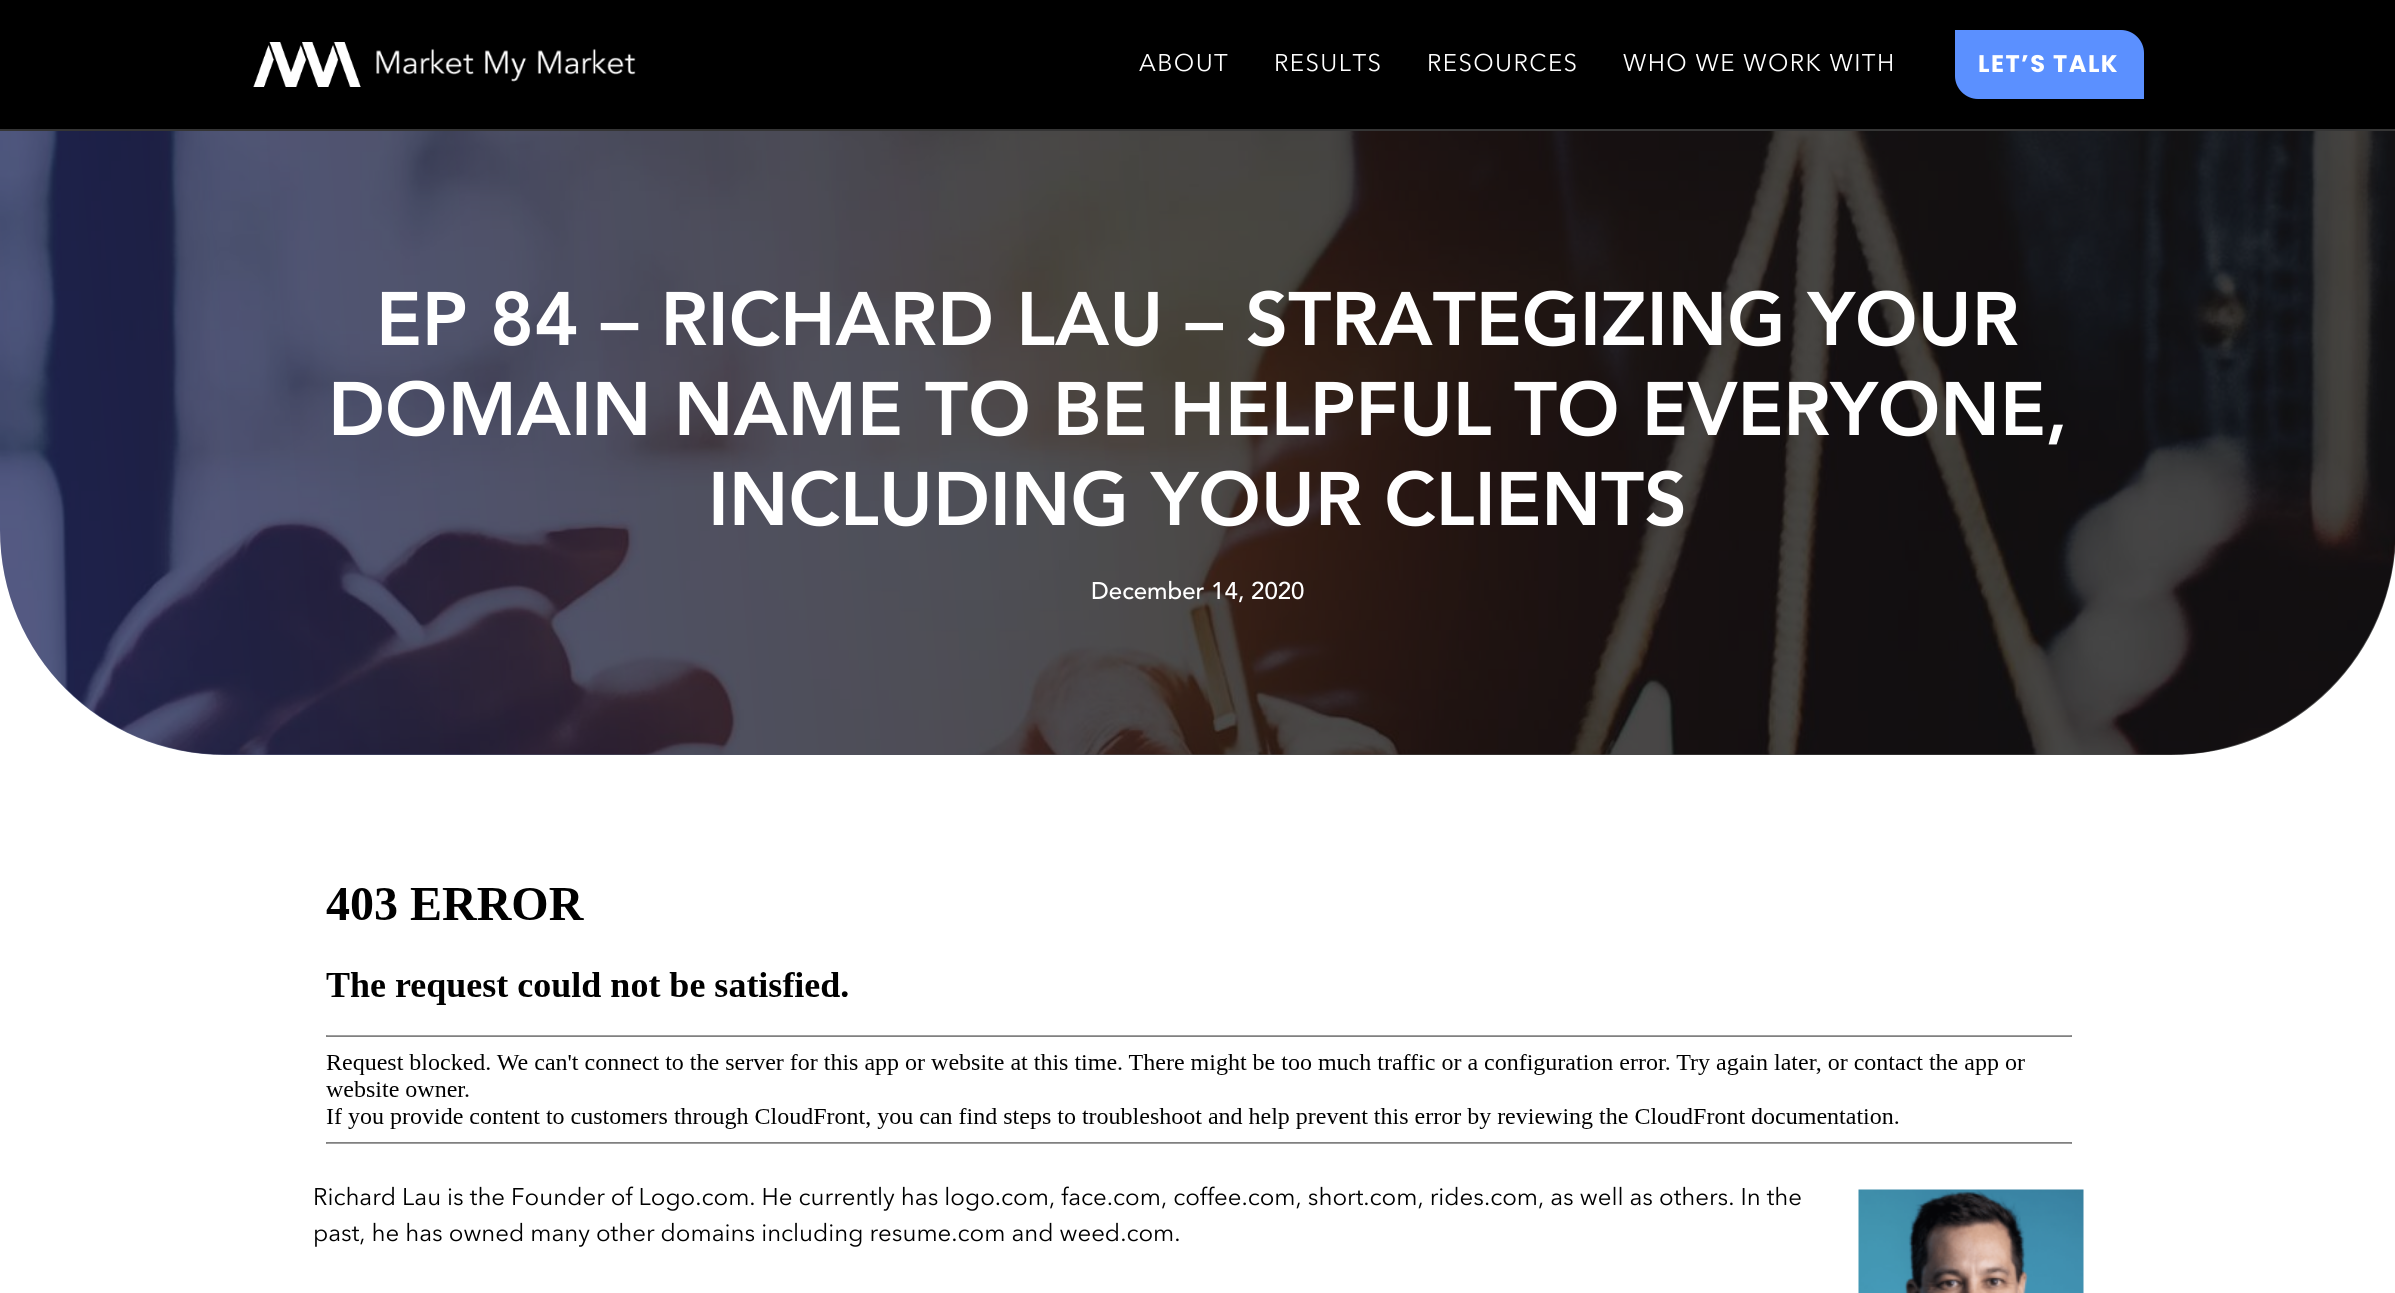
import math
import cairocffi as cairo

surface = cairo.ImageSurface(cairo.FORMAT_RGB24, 2395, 1293)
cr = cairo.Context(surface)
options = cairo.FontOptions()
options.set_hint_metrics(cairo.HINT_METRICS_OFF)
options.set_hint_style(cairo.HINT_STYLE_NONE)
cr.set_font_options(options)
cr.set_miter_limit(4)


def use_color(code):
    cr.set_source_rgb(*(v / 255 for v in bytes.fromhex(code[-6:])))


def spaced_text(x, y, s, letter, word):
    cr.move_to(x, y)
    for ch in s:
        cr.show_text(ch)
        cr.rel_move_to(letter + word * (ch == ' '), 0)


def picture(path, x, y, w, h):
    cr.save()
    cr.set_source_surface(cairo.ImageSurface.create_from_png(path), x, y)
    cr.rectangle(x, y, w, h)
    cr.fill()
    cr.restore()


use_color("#ffffff")
cr.paint()
use_color("#000000")
cr.rectangle(0, 0, 2395, 129)
cr.fill()
use_color("#353535")
cr.rectangle(0, 129, 2395, 2)
cr.fill()
picture("img1.png", 253, 42, 383, 45)
cr.select_font_face("Avenir Next")
cr.set_font_size(24)
use_color("#ffffff")
spaced_text(1139, 71, "ABOUT", 1.4, 0)
spaced_text(1274, 71, "RESULTS", 1.4, 0)
spaced_text(1427, 71, "RESOURCES", 1.4, 0)
spaced_text(1623, 71, "WHO WE WORK WITH", 1.4, 0)
use_color("#5b90ff")
cr.new_path()
cr.move_to(1955, 30)
cr.line_to(2121, 30)
cr.curve_to(2133.5, 30, 2144, 40.5, 2144, 53)
cr.line_to(2144, 99)
cr.line_to(1978, 99)
cr.curve_to(1965.5, 99, 1955, 88.5, 1955, 76)
cr.close_path()
cr.fill()
cr.select_font_face("Poppins", cairo.FONT_SLANT_NORMAL, cairo.FONT_WEIGHT_BOLD)
use_color("#ffffff")
spaced_text(1978, 72, "LET’S TALK", 1.5, 0)
picture("img2.png", 0, 131, 2395, 624)
gradient = cairo.LinearGradient(-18, 549, 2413, 336)
gradient.add_color_stop_rgba(0, 0.067, 0.11, 0.345, 0.7)
gradient.add_color_stop_rgba(0.5, 0, 0, 0, 0.7)
cr.set_source(gradient)
cr.new_path()
cr.move_to(0, 131)
cr.line_to(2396, 131)
cr.line_to(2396, 530)
cr.curve_to(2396, 654.5, 2295.5, 755, 2171, 755)
cr.line_to(225, 755)
cr.curve_to(100.5, 755, 0, 654.5, 0, 530)
cr.close_path()
cr.fill()
cr.select_font_face("Avenir Black")
cr.set_font_size(75)
use_color("#ffffff")
cr.move_to(376, 345)
cr.show_text("EP 84 – RICHARD LAU – STRATEGIZING YOUR")
cr.move_to(328, 435)
cr.show_text("DOMAIN NAME TO BE HELPFUL TO EVERYONE,")
cr.move_to(708, 525)
cr.show_text("INCLUDING YOUR CLIENTS")
cr.select_font_face("Avenir Medium")
cr.set_font_size(24)
cr.move_to(1091, 599)
cr.show_text("December 14, 2020")
picture("img3.png", 326, 888, 1746, 256)
cr.select_font_face("Avenir Next")
use_color("#000000")
cr.move_to(313, 1205)
cr.show_text("Richard Lau is the Founder of Logo.com. He currently has logo.com, face.com, coffee.com, short.com, rides.com, as well as others. In the")
cr.move_to(313, 1241)
cr.show_text("past, he has owned many other domains including resume.com and weed.com.")
picture("img4.png", 1858, 1189, 226, 104)
surface.write_to_png("result.png")
